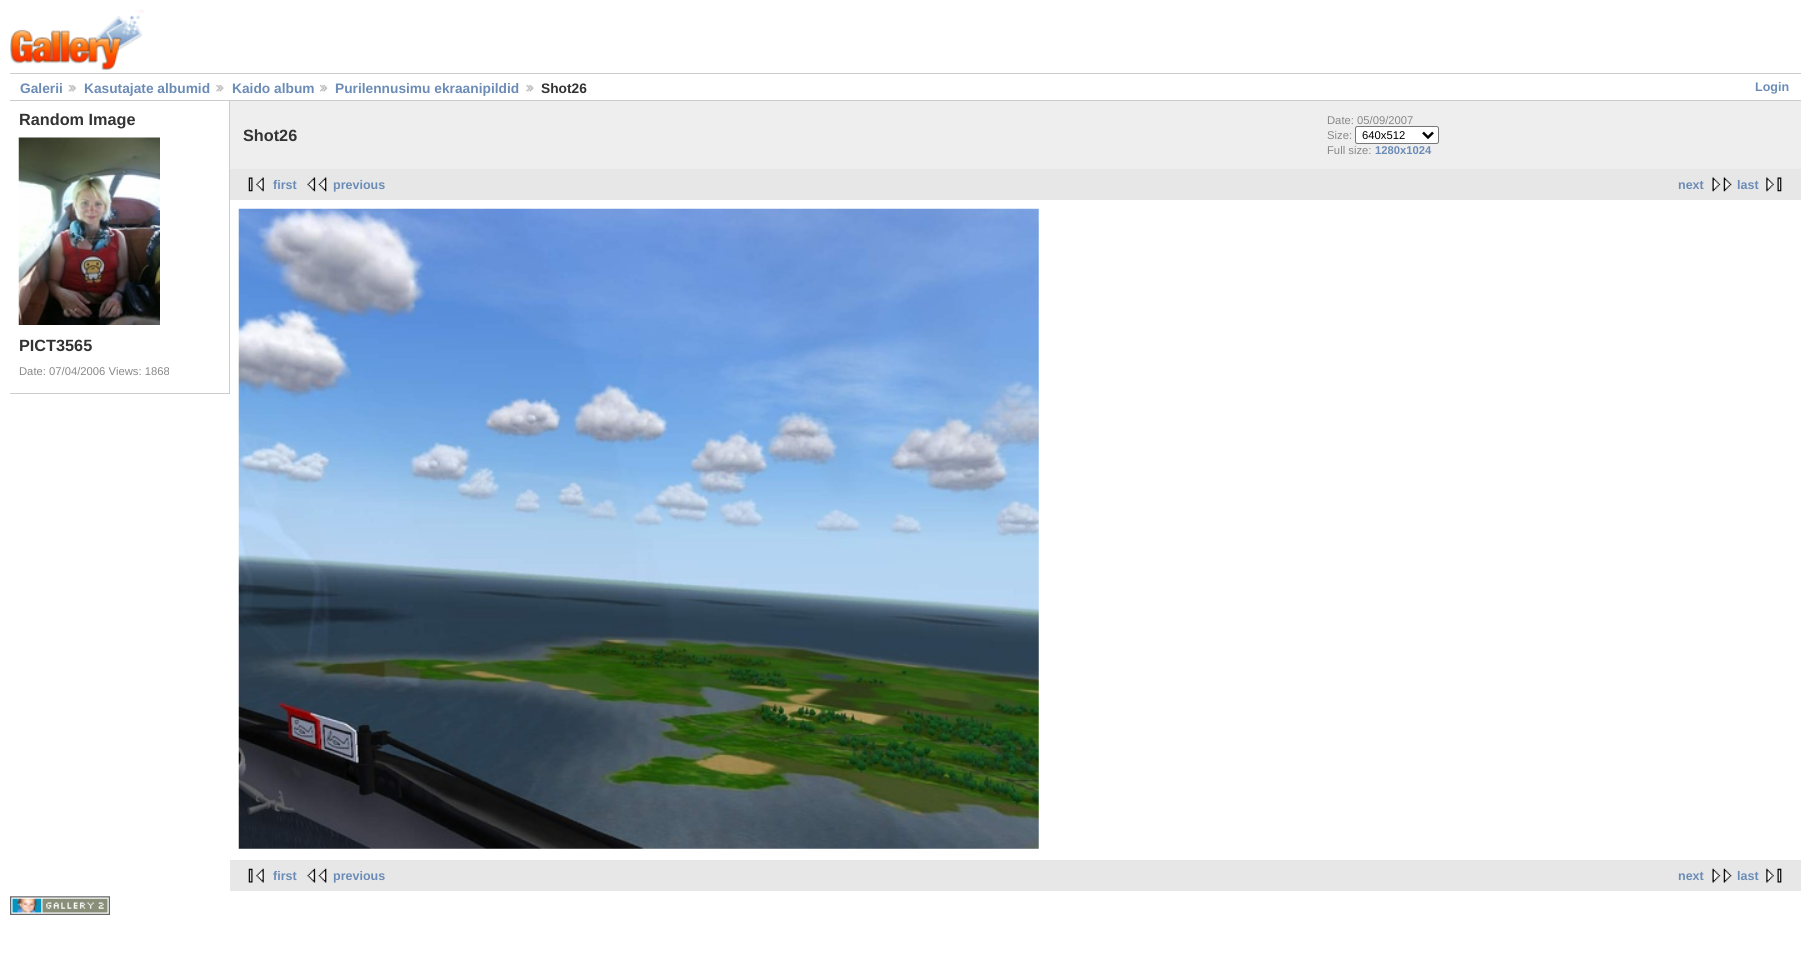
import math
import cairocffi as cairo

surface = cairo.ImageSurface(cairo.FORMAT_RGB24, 1811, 961)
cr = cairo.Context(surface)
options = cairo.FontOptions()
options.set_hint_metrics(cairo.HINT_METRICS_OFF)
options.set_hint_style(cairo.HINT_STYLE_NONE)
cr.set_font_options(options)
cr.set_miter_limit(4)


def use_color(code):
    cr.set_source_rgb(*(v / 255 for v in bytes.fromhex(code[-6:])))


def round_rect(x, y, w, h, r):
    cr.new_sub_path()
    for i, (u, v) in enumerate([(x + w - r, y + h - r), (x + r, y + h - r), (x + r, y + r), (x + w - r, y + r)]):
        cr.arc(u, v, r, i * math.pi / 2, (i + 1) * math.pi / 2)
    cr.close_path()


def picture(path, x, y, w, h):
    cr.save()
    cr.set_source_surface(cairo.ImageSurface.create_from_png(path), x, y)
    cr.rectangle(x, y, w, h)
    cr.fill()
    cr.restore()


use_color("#ffffff")
cr.paint()
picture("img1.png", 10, 10, 134, 60)
use_color("#cccccc")
cr.rectangle(10, 73, 1791, 1)
cr.fill()
cr.rectangle(10, 100, 1791, 1)
cr.fill()
cr.select_font_face("Liberation Sans", cairo.FONT_SLANT_NORMAL, cairo.FONT_WEIGHT_BOLD)
cr.set_font_size(13.75)
use_color("#6b8cb7")
cr.move_to(20, 93)
cr.show_text("Galerii")
picture("img2.png", 68, 85, 9, 7)
cr.move_to(84, 93)
cr.show_text("Kasutajate albumid")
picture("img3.png", 216, 85, 8, 7)
cr.move_to(232, 93)
cr.show_text("Kaido album")
picture("img4.png", 320, 84, 8, 8)
cr.move_to(335, 93)
cr.show_text("Purilennusimu ekraanipildid")
picture("img5.png", 526, 85, 8, 7)
use_color("#333333")
cr.move_to(541, 93)
cr.show_text("Shot26")
cr.set_font_size(12.5)
use_color("#6b8cb7")
cr.move_to(1755, 91)
cr.show_text("Login")
use_color("#cccccc")
cr.rectangle(229, 101, 1, 293)
cr.fill()
cr.rectangle(10, 393, 219, 1)
cr.fill()
cr.set_font_size(16.25)
use_color("#333333")
cr.move_to(19, 125)
cr.show_text("Random Image")
picture("img6.png", 18, 137, 142, 188)
cr.move_to(19, 351)
cr.show_text("PICT3565")
cr.select_font_face("Liberation Sans")
cr.set_font_size(11.25)
use_color("#888888")
cr.move_to(19, 375)
cr.show_text("Date: 07/04/2006 Views: 1868")
use_color("#eeeeee")
cr.rectangle(230, 101, 1571, 68)
cr.fill()
cr.select_font_face("Liberation Sans", cairo.FONT_SLANT_NORMAL, cairo.FONT_WEIGHT_BOLD)
cr.set_font_size(16.25)
use_color("#333333")
cr.move_to(243, 141)
cr.show_text("Shot26")
cr.select_font_face("Liberation Sans")
cr.set_font_size(11.25)
use_color("#888888")
cr.move_to(1327, 124)
cr.show_text("Date: 05/09/2007")
cr.move_to(1327, 139)
cr.show_text("Size:")
use_color("#ffffff")
round_rect(1355.5, 126.5, 83, 17, 2)
cr.fill_preserve()
use_color("#767676")
cr.set_line_width(1)
cr.stroke()
cr.new_path()
cr.move_to(1423, 132.5)
cr.line_to(1428, 137.5)
cr.line_to(1433, 132.5)
use_color("#000000")
cr.set_line_width(2.5)
cr.stroke()
cr.move_to(1362, 139)
cr.show_text("640x512")
use_color("#888888")
cr.move_to(1327, 154)
cr.show_text("Full size:")
cr.select_font_face("Liberation Sans", cairo.FONT_SLANT_NORMAL, cairo.FONT_WEIGHT_BOLD)
use_color("#6b8cb7")
cr.move_to(1375, 154)
cr.show_text("1280x1024")
use_color("#e7e7e7")
cr.rectangle(230, 169, 1571, 31)
cr.fill()
picture("img7.png", 248, 177, 16, 15)
cr.set_font_size(12.5)
use_color("#6b8cb7")
cr.move_to(273, 189)
cr.show_text("first")
picture("img8.png", 307, 177, 20, 15)
cr.move_to(333, 189)
cr.show_text("previous")
cr.move_to(1678, 189)
cr.show_text("next")
picture("img9.png", 1712, 177, 20, 15)
cr.move_to(1737, 189)
cr.show_text("last")
picture("img10.png", 1766, 177, 16, 15)
picture("img11.png", 238, 208, 801, 641)
use_color("#e7e7e7")
cr.rectangle(230, 860, 1571, 31)
cr.fill()
picture("img12.png", 248, 868, 16, 15)
use_color("#6b8cb7")
cr.move_to(273, 880)
cr.show_text("first")
picture("img13.png", 307, 868, 20, 15)
cr.move_to(333, 880)
cr.show_text("previous")
cr.move_to(1678, 880)
cr.show_text("next")
picture("img14.png", 1712, 868, 20, 15)
cr.move_to(1737, 880)
cr.show_text("last")
picture("img15.png", 1766, 868, 16, 15)
picture("img16.png", 10, 896, 100, 19)
surface.write_to_png("result.png")
